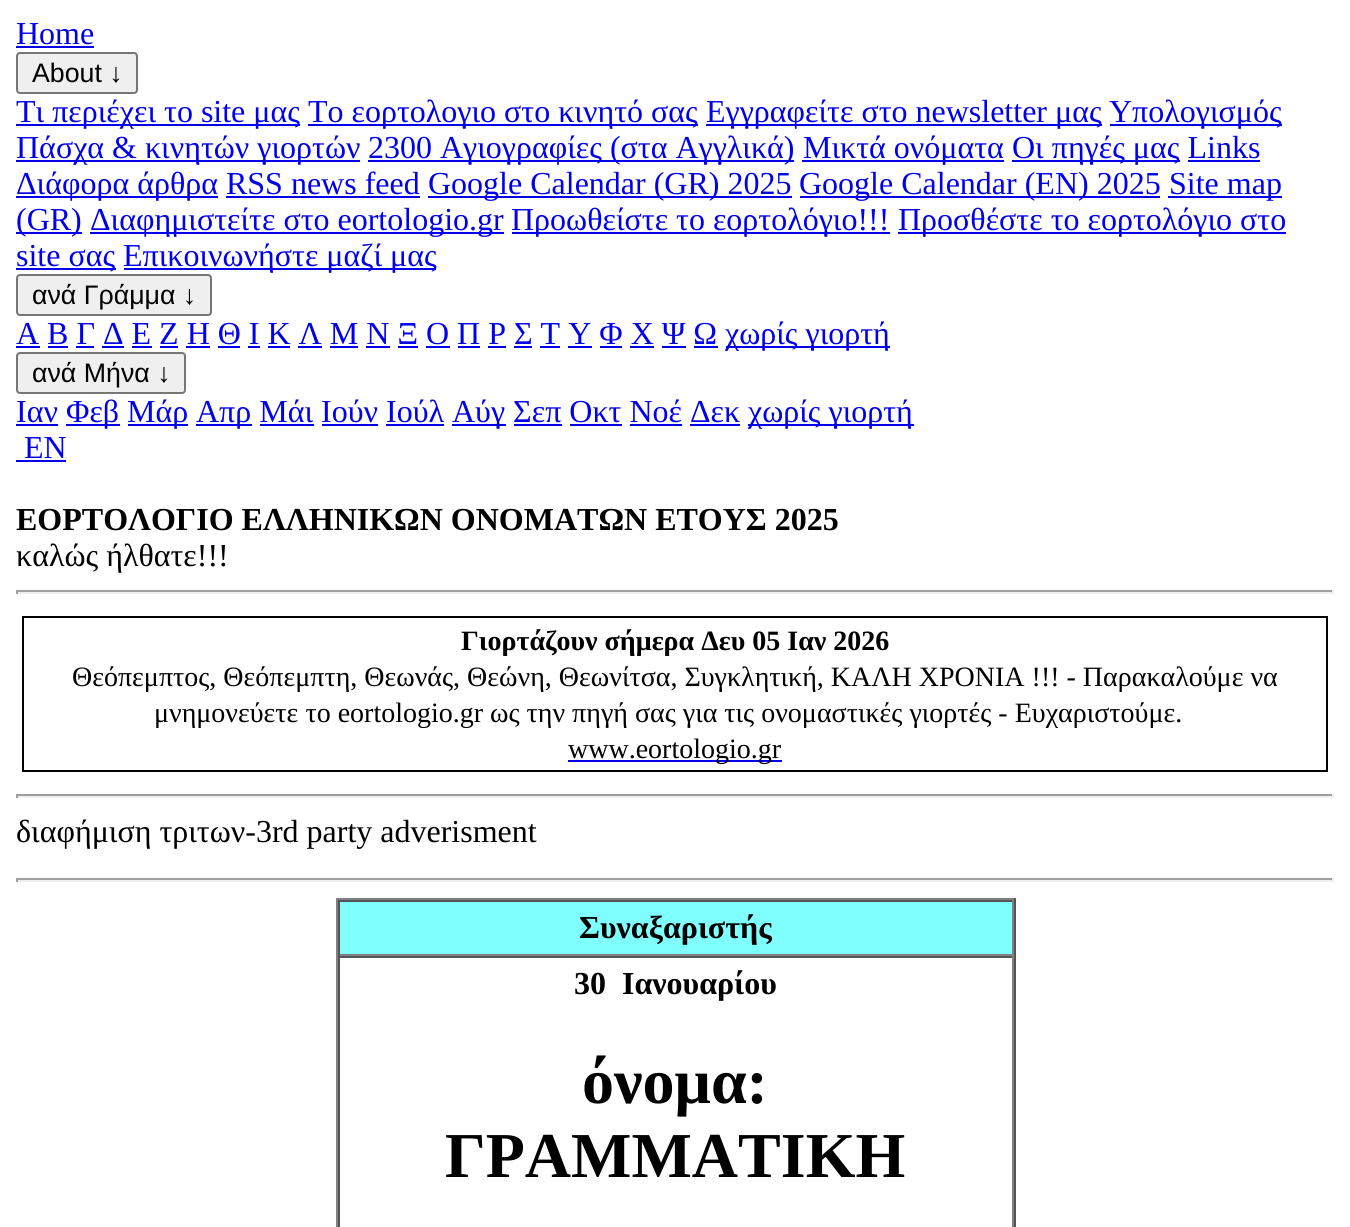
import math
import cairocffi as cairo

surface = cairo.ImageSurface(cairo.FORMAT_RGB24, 1350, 1227)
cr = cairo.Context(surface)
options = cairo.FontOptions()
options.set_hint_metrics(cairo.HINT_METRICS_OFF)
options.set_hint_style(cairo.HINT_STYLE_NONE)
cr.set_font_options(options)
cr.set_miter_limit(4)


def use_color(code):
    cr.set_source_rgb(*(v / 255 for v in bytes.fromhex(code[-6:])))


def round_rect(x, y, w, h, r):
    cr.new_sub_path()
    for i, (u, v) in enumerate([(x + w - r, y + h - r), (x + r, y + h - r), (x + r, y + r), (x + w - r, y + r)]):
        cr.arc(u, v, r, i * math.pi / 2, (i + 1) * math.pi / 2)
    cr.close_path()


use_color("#ffffff")
cr.paint()
cr.select_font_face("Liberation Serif")
cr.set_font_size(32)
use_color("#0000ee")
cr.move_to(16, 44)
cr.show_text("Home")
cr.rectangle(16, 46, 78, 2)
cr.fill()
use_color("#efefef")
round_rect(17, 53, 120, 40, 3)
cr.fill_preserve()
use_color("#767676")
cr.stroke()
cr.select_font_face("Liberation Sans")
cr.set_font_size(26.75)
use_color("#000000")
cr.move_to(32, 82)
cr.show_text("About ↓")
use_color("#0000ee")
cr.rectangle(16, 124, 284, 2)
cr.fill()
cr.select_font_face("Liberation Serif")
cr.set_font_size(32)
cr.move_to(16, 122)
cr.show_text("Τι περιέχει το site μας")
cr.rectangle(308, 124, 390, 2)
cr.fill()
cr.move_to(308, 122)
cr.show_text("Το εορτολογιο στο κινητό σας")
cr.rectangle(706, 124, 396, 2)
cr.fill()
cr.move_to(706, 122)
cr.show_text("Εγγραφείτε στο newsletter μας")
cr.rectangle(1110, 124, 172, 2)
cr.fill()
cr.move_to(1109, 122)
cr.show_text("Υπολογισμός")
cr.rectangle(16, 160, 344, 2)
cr.fill()
cr.move_to(16, 158)
cr.show_text("Πάσχα & κινητών γιορτών")
cr.rectangle(368, 160, 426, 2)
cr.fill()
cr.move_to(368, 158)
cr.show_text("2300 Αγιογραφίες (στα Αγγλικά)")
cr.rectangle(802, 160, 202, 2)
cr.fill()
cr.move_to(803, 158)
cr.show_text("Μικτά ονόματα")
cr.rectangle(1012, 160, 168, 2)
cr.fill()
cr.move_to(1012, 158)
cr.show_text("Οι πηγές μας Links")
cr.rectangle(1188, 160, 72, 2)
cr.fill()
cr.rectangle(16, 196, 202, 2)
cr.fill()
cr.move_to(16, 194)
cr.show_text("Διάφορα άρθρα RSS news feed")
cr.rectangle(428, 196, 364, 2)
cr.fill()
cr.move_to(428, 194)
cr.show_text("Google Calendar (GR) 2025")
cr.rectangle(800, 196, 360, 2)
cr.fill()
cr.move_to(799, 194)
cr.show_text("Google Calendar (EN) 2025")
cr.rectangle(1168, 196, 114, 2)
cr.fill()
cr.move_to(1169, 194)
cr.show_text("Site map")
cr.rectangle(226, 196, 194, 2)
cr.fill()
cr.rectangle(16, 232, 66, 2)
cr.fill()
cr.move_to(16, 230)
cr.show_text("(GR)")
cr.rectangle(90, 232, 414, 2)
cr.fill()
cr.move_to(90, 230)
cr.show_text("Διαφημιστείτε στο eortologio.gr")
cr.rectangle(512, 232, 378, 2)
cr.fill()
cr.move_to(511, 230)
cr.show_text("Προωθείστε το εορτολόγιο!!!")
cr.rectangle(898, 232, 388, 2)
cr.fill()
cr.move_to(898, 230)
cr.show_text("Προσθέστε το εορτολόγιο στο")
cr.rectangle(16, 268, 100, 2)
cr.fill()
cr.move_to(16, 266)
cr.show_text("site σας")
cr.rectangle(124, 268, 312, 2)
cr.fill()
cr.move_to(123, 266)
cr.show_text("Επικοινωνήστε μαζί μας")
use_color("#efefef")
round_rect(17, 275, 194, 40, 3)
cr.fill_preserve()
use_color("#767676")
cr.stroke()
cr.select_font_face("Liberation Sans")
cr.set_font_size(26.75)
use_color("#000000")
cr.move_to(32, 304)
cr.show_text("ανά Γράμμα ↓")
cr.select_font_face("Liberation Serif")
cr.set_font_size(32)
use_color("#0000ee")
cr.move_to(16, 344)
cr.show_text("Α Β Γ Δ Ε Ζ Η Θ Ι Κ Λ Μ Ν Ξ Ο Π Ρ Σ Τ Υ Φ Χ Ψ Ω")
cr.rectangle(16, 346, 24, 2)
cr.fill()
cr.rectangle(726, 346, 164, 2)
cr.fill()
cr.move_to(725, 344)
cr.show_text("χωρίς γιορτή")
cr.rectangle(48, 346, 20, 2)
cr.fill()
cr.rectangle(76, 346, 18, 2)
cr.fill()
cr.rectangle(102, 346, 22, 2)
cr.fill()
cr.rectangle(132, 346, 20, 2)
cr.fill()
cr.rectangle(160, 346, 18, 2)
cr.fill()
cr.rectangle(186, 346, 24, 2)
cr.fill()
cr.rectangle(218, 346, 22, 2)
cr.fill()
cr.rectangle(248, 346, 12, 2)
cr.fill()
cr.rectangle(268, 346, 22, 2)
cr.fill()
cr.rectangle(298, 346, 24, 2)
cr.fill()
cr.rectangle(330, 346, 28, 2)
cr.fill()
cr.rectangle(366, 346, 24, 2)
cr.fill()
cr.rectangle(398, 346, 20, 2)
cr.fill()
cr.rectangle(426, 346, 24, 2)
cr.fill()
cr.rectangle(458, 346, 22, 2)
cr.fill()
cr.rectangle(488, 346, 18, 2)
cr.fill()
cr.rectangle(514, 346, 18, 2)
cr.fill()
cr.rectangle(540, 346, 20, 2)
cr.fill()
cr.rectangle(568, 346, 24, 2)
cr.fill()
cr.rectangle(600, 346, 22, 2)
cr.fill()
cr.rectangle(630, 346, 24, 2)
cr.fill()
cr.rectangle(662, 346, 24, 2)
cr.fill()
cr.rectangle(694, 346, 24, 2)
cr.fill()
use_color("#efefef")
round_rect(17, 353, 168, 40, 3)
cr.fill_preserve()
use_color("#767676")
cr.stroke()
cr.select_font_face("Liberation Sans")
cr.set_font_size(26.75)
use_color("#000000")
cr.move_to(32, 382)
cr.show_text("ανά Μήνα ↓")
cr.select_font_face("Liberation Serif")
cr.set_font_size(32)
use_color("#0000ee")
cr.move_to(16, 422)
cr.show_text("Ιαν")
cr.rectangle(16, 424, 42, 2)
cr.fill()
cr.rectangle(66, 424, 54, 2)
cr.fill()
cr.move_to(66, 422)
cr.show_text("Φεβ")
cr.rectangle(128, 424, 60, 2)
cr.fill()
cr.move_to(127, 422)
cr.show_text("Μάρ")
cr.rectangle(196, 424, 56, 2)
cr.fill()
cr.move_to(196, 422)
cr.show_text("Απρ Μάι Ιούν Ιούλ")
cr.rectangle(452, 424, 54, 2)
cr.fill()
cr.move_to(452, 422)
cr.show_text("Αύγ Σεπ Οκτ Νοέ Δεκ")
cr.rectangle(748, 424, 166, 2)
cr.fill()
cr.move_to(748, 422)
cr.show_text("χωρίς γιορτή")
cr.rectangle(260, 424, 54, 2)
cr.fill()
cr.rectangle(322, 424, 56, 2)
cr.fill()
cr.rectangle(386, 424, 58, 2)
cr.fill()
cr.rectangle(514, 424, 48, 2)
cr.fill()
cr.rectangle(570, 424, 52, 2)
cr.fill()
cr.rectangle(630, 424, 52, 2)
cr.fill()
cr.rectangle(690, 424, 50, 2)
cr.fill()
cr.move_to(24, 458)
cr.show_text("EN")
cr.rectangle(16, 460, 50, 2)
cr.fill()
cr.select_font_face("Liberation Serif", cairo.FONT_SLANT_NORMAL, cairo.FONT_WEIGHT_BOLD)
use_color("#000000")
cr.move_to(16, 530)
cr.show_text("ΕΟΡΤΟΛΟΓΙΟ ΕΛΛΗΝΙΚΩΝ ΟΝΟΜΑΤΩΝ ΕΤΟΥΣ 2025")
cr.select_font_face("Liberation Serif")
cr.move_to(16, 566)
cr.show_text("καλώς ήλθατε!!!")
use_color("#9f9f9f")
cr.rectangle(16, 590, 1318, 2)
cr.fill()
use_color("#eeeeee")
cr.rectangle(1332, 590, 2, 4)
cr.fill()
cr.rectangle(16, 592, 1318, 2)
cr.fill()
use_color("#9f9f9f")
cr.rectangle(16, 590, 2, 4)
cr.fill()
cr.rectangle(23, 617, 1304, 154)
use_color("#000000")
cr.stroke()
cr.select_font_face("Liberation Serif", cairo.FONT_SLANT_NORMAL, cairo.FONT_WEIGHT_BOLD)
cr.set_font_size(28)
cr.move_to(461, 650)
cr.show_text("Γιορτάζουν σήμερα Δευ 05 Ιαν 2026")
cr.select_font_face("Liberation Serif")
cr.move_to(72, 686)
cr.show_text("Θεόπεμπτος, Θεόπεμπτη, Θεωνάς, Θεώνη, Θεωνίτσα, Συγκλητική, ΚΑΛΗ ΧΡΟΝΙΑ !!! - Παρακαλούμε να")
cr.move_to(154, 722)
cr.show_text("μνημονεύετε το eortologio.gr ως την πηγή σας για τις ονομαστικές γιορτές - Ευχαριστούμε.")
use_color("#0000ee")
cr.rectangle(568, 760, 214, 2)
cr.fill()
use_color("#000000")
cr.move_to(568, 758)
cr.show_text("www.eortologio.gr")
use_color("#9f9f9f")
cr.rectangle(16, 794, 1318, 2)
cr.fill()
use_color("#eeeeee")
cr.rectangle(1332, 794, 2, 4)
cr.fill()
cr.rectangle(16, 796, 1318, 2)
cr.fill()
use_color("#9f9f9f")
cr.rectangle(16, 794, 2, 4)
cr.fill()
cr.set_font_size(32)
use_color("#000000")
cr.move_to(16, 842)
cr.show_text("διαφήμιση τριτων-3rd party adverisment")
use_color("#9f9f9f")
cr.rectangle(16, 878, 1318, 2)
cr.fill()
use_color("#eeeeee")
cr.rectangle(1332, 878, 2, 4)
cr.fill()
cr.rectangle(16, 880, 1318, 2)
cr.fill()
use_color("#9f9f9f")
cr.rectangle(16, 878, 2, 4)
cr.fill()
use_color("#808080")
cr.rectangle(336, 898, 680, 2)
cr.fill()
use_color("#555555")
cr.rectangle(1014, 898, 2, 329)
cr.fill()
use_color("#808080")
cr.rectangle(336, 898, 2, 329)
cr.fill()
use_color("#80ffff")
cr.rectangle(340, 902, 672, 52)
cr.fill()
use_color("#555555")
cr.rectangle(338, 900, 676, 2)
cr.fill()
use_color("#808080")
cr.rectangle(1012, 900, 2, 56)
cr.fill()
cr.rectangle(338, 954, 676, 2)
cr.fill()
use_color("#555555")
cr.rectangle(338, 900, 2, 56)
cr.fill()
cr.select_font_face("Liberation Serif", cairo.FONT_SLANT_NORMAL, cairo.FONT_WEIGHT_BOLD)
use_color("#000000")
cr.move_to(579, 938)
cr.show_text("Συναξαριστής")
use_color("#555555")
cr.rectangle(338, 956, 676, 2)
cr.fill()
use_color("#808080")
cr.rectangle(1012, 956, 2, 271)
cr.fill()
use_color("#555555")
cr.rectangle(338, 956, 2, 271)
cr.fill()
use_color("#000000")
cr.move_to(574, 994)
cr.show_text("30  Ιανουαρίου")
cr.set_font_size(64)
cr.move_to(582, 1103)
cr.show_text("όνομα:")
cr.move_to(445, 1177)
cr.show_text("ΓΡΑΜΜΑΤΙΚΗ")
surface.write_to_png("result.png")
